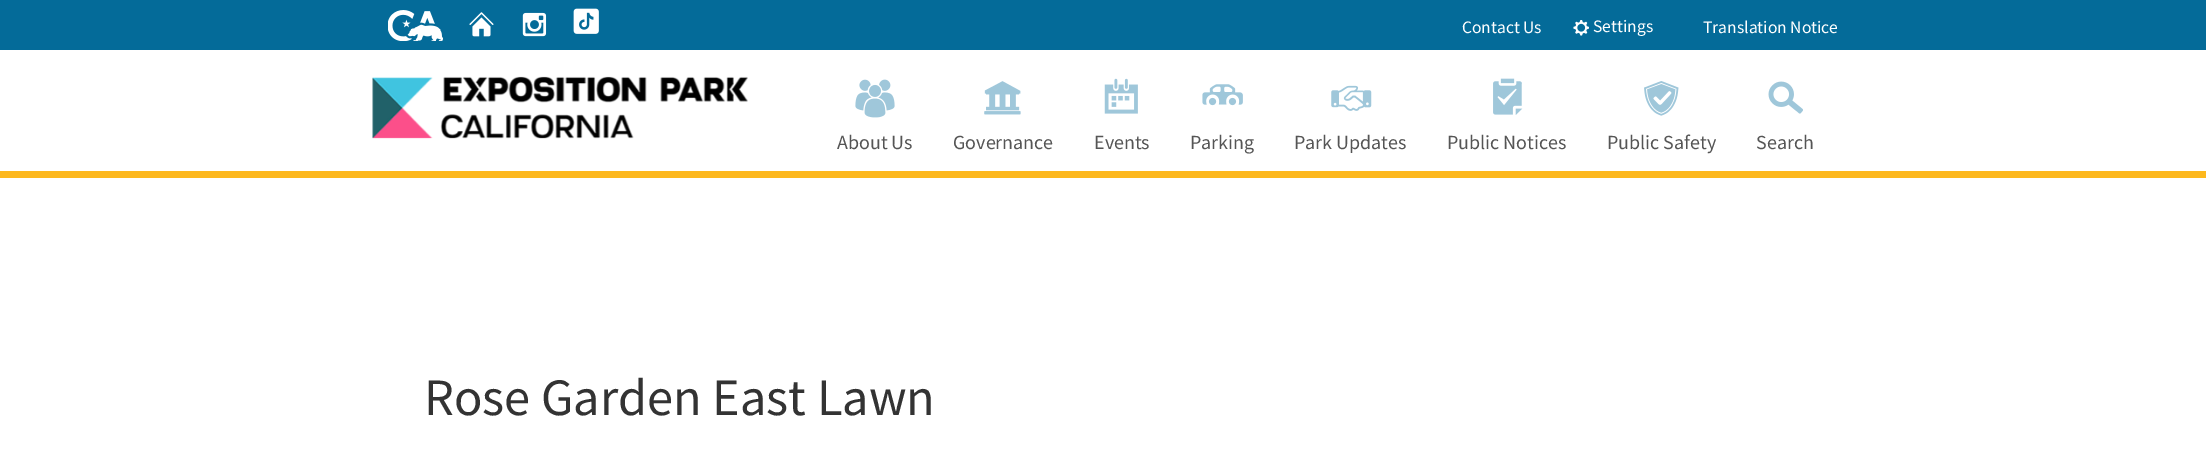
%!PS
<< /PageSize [2206 458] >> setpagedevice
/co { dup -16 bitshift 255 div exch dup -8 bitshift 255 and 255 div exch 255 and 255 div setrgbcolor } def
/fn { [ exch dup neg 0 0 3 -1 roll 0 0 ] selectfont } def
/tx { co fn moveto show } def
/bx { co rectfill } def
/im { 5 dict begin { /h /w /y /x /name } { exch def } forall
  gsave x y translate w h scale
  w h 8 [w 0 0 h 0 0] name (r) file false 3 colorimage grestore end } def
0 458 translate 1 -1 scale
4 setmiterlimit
0 0 2206 458 16#FFFFFF bx
0 0 2206 50 16#046B99 bx
(media/1.raw) 388 10 55 31 im
(media/2.raw) 469 12 25 25 im
(media/3.raw) 522 12 25 25 im
(media/4.raw) 573 8 26 26 im
(media/5.raw) 1573 20 16 16 im
(media/6.raw) 372 76 376 63 im
0 171 2206 7 16#FDB81E bx
(media/7.raw) 855 79 40 39 im
(media/8.raw) 984 81 37 34 im
(media/9.raw) 1104 78 34 36 im
(media/10.raw) 1202 84 41 22 im
(media/11.raw) 1331 85 41 26 im
(media/12.raw) 1493 78 30 37 im
(media/13.raw) 1644 81 35 35 im
(media/14.raw) 1768 81 35 33 im
(Contact Us) 1462 33 /SourceSansPro-Regular 17.5 16#FFFFFF tx
(Settings) 1593 32 /SourceSansPro-Regular 17.5 16#FFFFFF tx
(Translation Notice) 1703 33 /SourceSansPro-Regular 17.5 16#FFFFFF tx
(About Us) 837 149 /SourceSansPro-Regular 20 16#555555 tx
(Governance) 953 149 /SourceSansPro-Regular 20 16#555555 tx
(Events) 1094 149 /SourceSansPro-Regular 20 16#555555 tx
(Parking) 1190 149 /SourceSansPro-Regular 20 16#555555 tx
(Park Updates) 1294 149 /SourceSansPro-Regular 20 16#555555 tx
(Public Notices) 1447 149 /SourceSansPro-Regular 20 16#555555 tx
(Public Safety) 1607 149 /SourceSansPro-Regular 20 16#555555 tx
(Search) 1756 149 /SourceSansPro-Regular 20 16#555555 tx
(Rose Garden East Lawn) 424 415 /SourceSansPro-Regular 52.5 16#333333 tx
showpage
